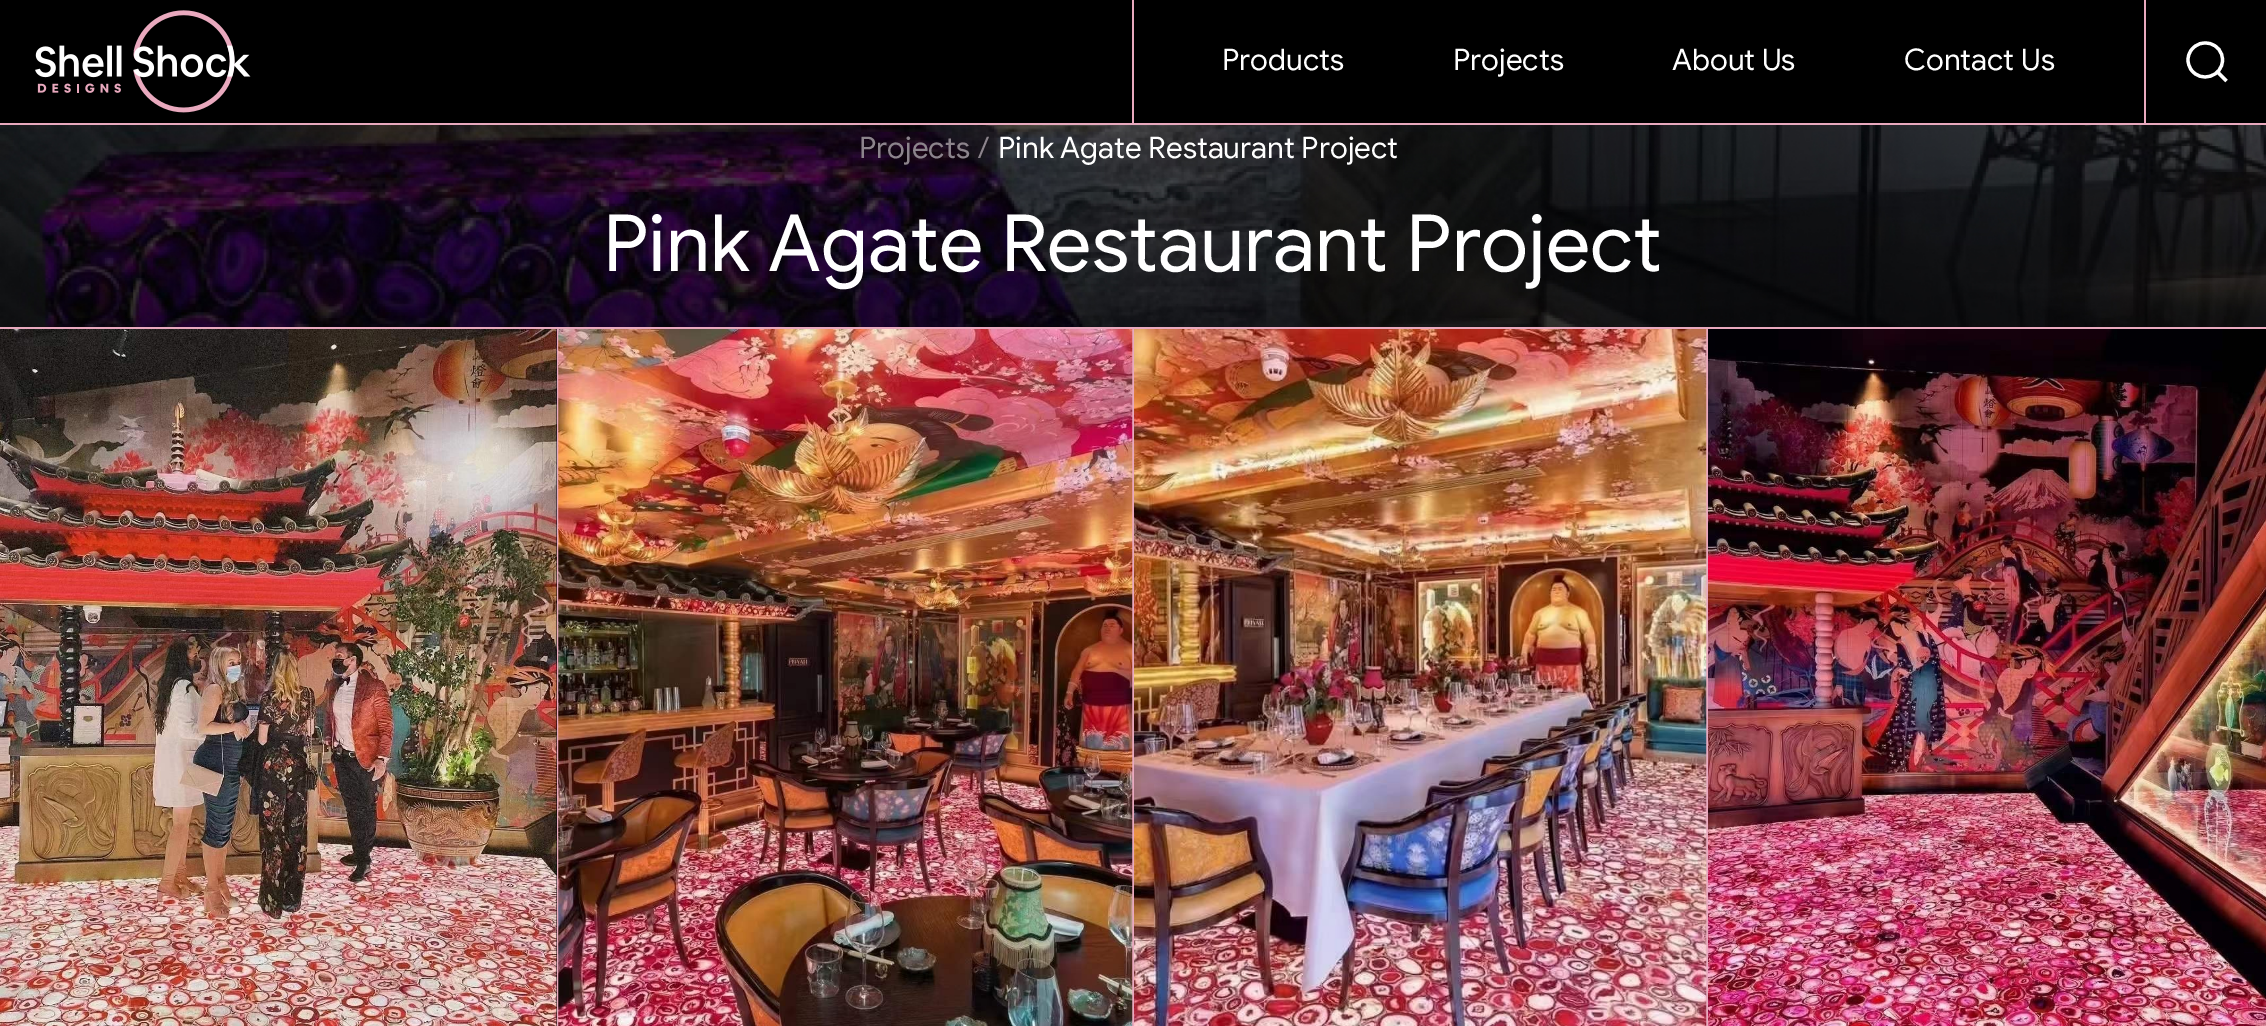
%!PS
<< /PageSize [2266 1026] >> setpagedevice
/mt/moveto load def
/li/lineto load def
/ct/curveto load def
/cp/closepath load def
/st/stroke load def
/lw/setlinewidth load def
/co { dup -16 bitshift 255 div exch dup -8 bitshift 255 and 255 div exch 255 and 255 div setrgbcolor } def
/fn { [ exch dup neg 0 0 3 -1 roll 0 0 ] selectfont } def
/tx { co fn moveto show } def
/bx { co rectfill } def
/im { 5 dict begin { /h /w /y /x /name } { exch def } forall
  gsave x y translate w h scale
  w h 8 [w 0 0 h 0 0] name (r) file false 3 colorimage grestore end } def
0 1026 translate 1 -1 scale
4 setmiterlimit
0 0 2266 1026 16#000000 bx
1132 0 2 124 16#E9A9BE bx
0 123 2266 2 16#E9A9BE bx
(media/1.raw) 35 10 216 103 im
2144 0 2 123 16#E9A9BE bx
16#FFFFFF co
3.2 lw
1 setlinecap
2226.5 81 mt 2217.5 72 li cp 2222.5 60 mt 2222.5 76.5 2200.5 83.5 2191 69.5 ct 2189 66.5 2188 63 2188 60 ct 2188 56.5 2189 53 2191 50.5 ct 2200.5 36.5 2222.5 43 2222.5 60 ct cp st
(media/2.raw) 0 125 2266 471 im
0 327 2266 2 16#E9A9BE bx
557 329 2 697 16#E9A9BE bx
(media/3.raw) 0 329 557 697 im
1132 329 2 697 16#E9A9BE bx
(media/4.raw) 558 329 575 697 im
1706 329 2 697 16#E9A9BE bx
(media/5.raw) 1134 329 573 697 im
(media/6.raw) 1708 329 558 697 im
(Products) 1222 70 /GoogleSans-Regular 29.75 16#FFFFFF tx
(Projects) 1453 70 /GoogleSans-Regular 29.75 16#FFFFFF tx
(About Us) 1672 70 /GoogleSans-Regular 29.75 16#FFFFFF tx
(Contact Us) 1904 70 /GoogleSans-Regular 29.75 16#FFFFFF tx
(Projects /) 859 158 /GoogleSans-Regular 29.75 16#8C848C tx
(Pink Agate Restaurant Project) 998 158 /GoogleSans-Regular 29.75 16#FFFFFF tx
(Pink Agate Restaurant Project) 603 271 /GoogleSans-Regular 78.75 16#FFFFFF tx
showpage
